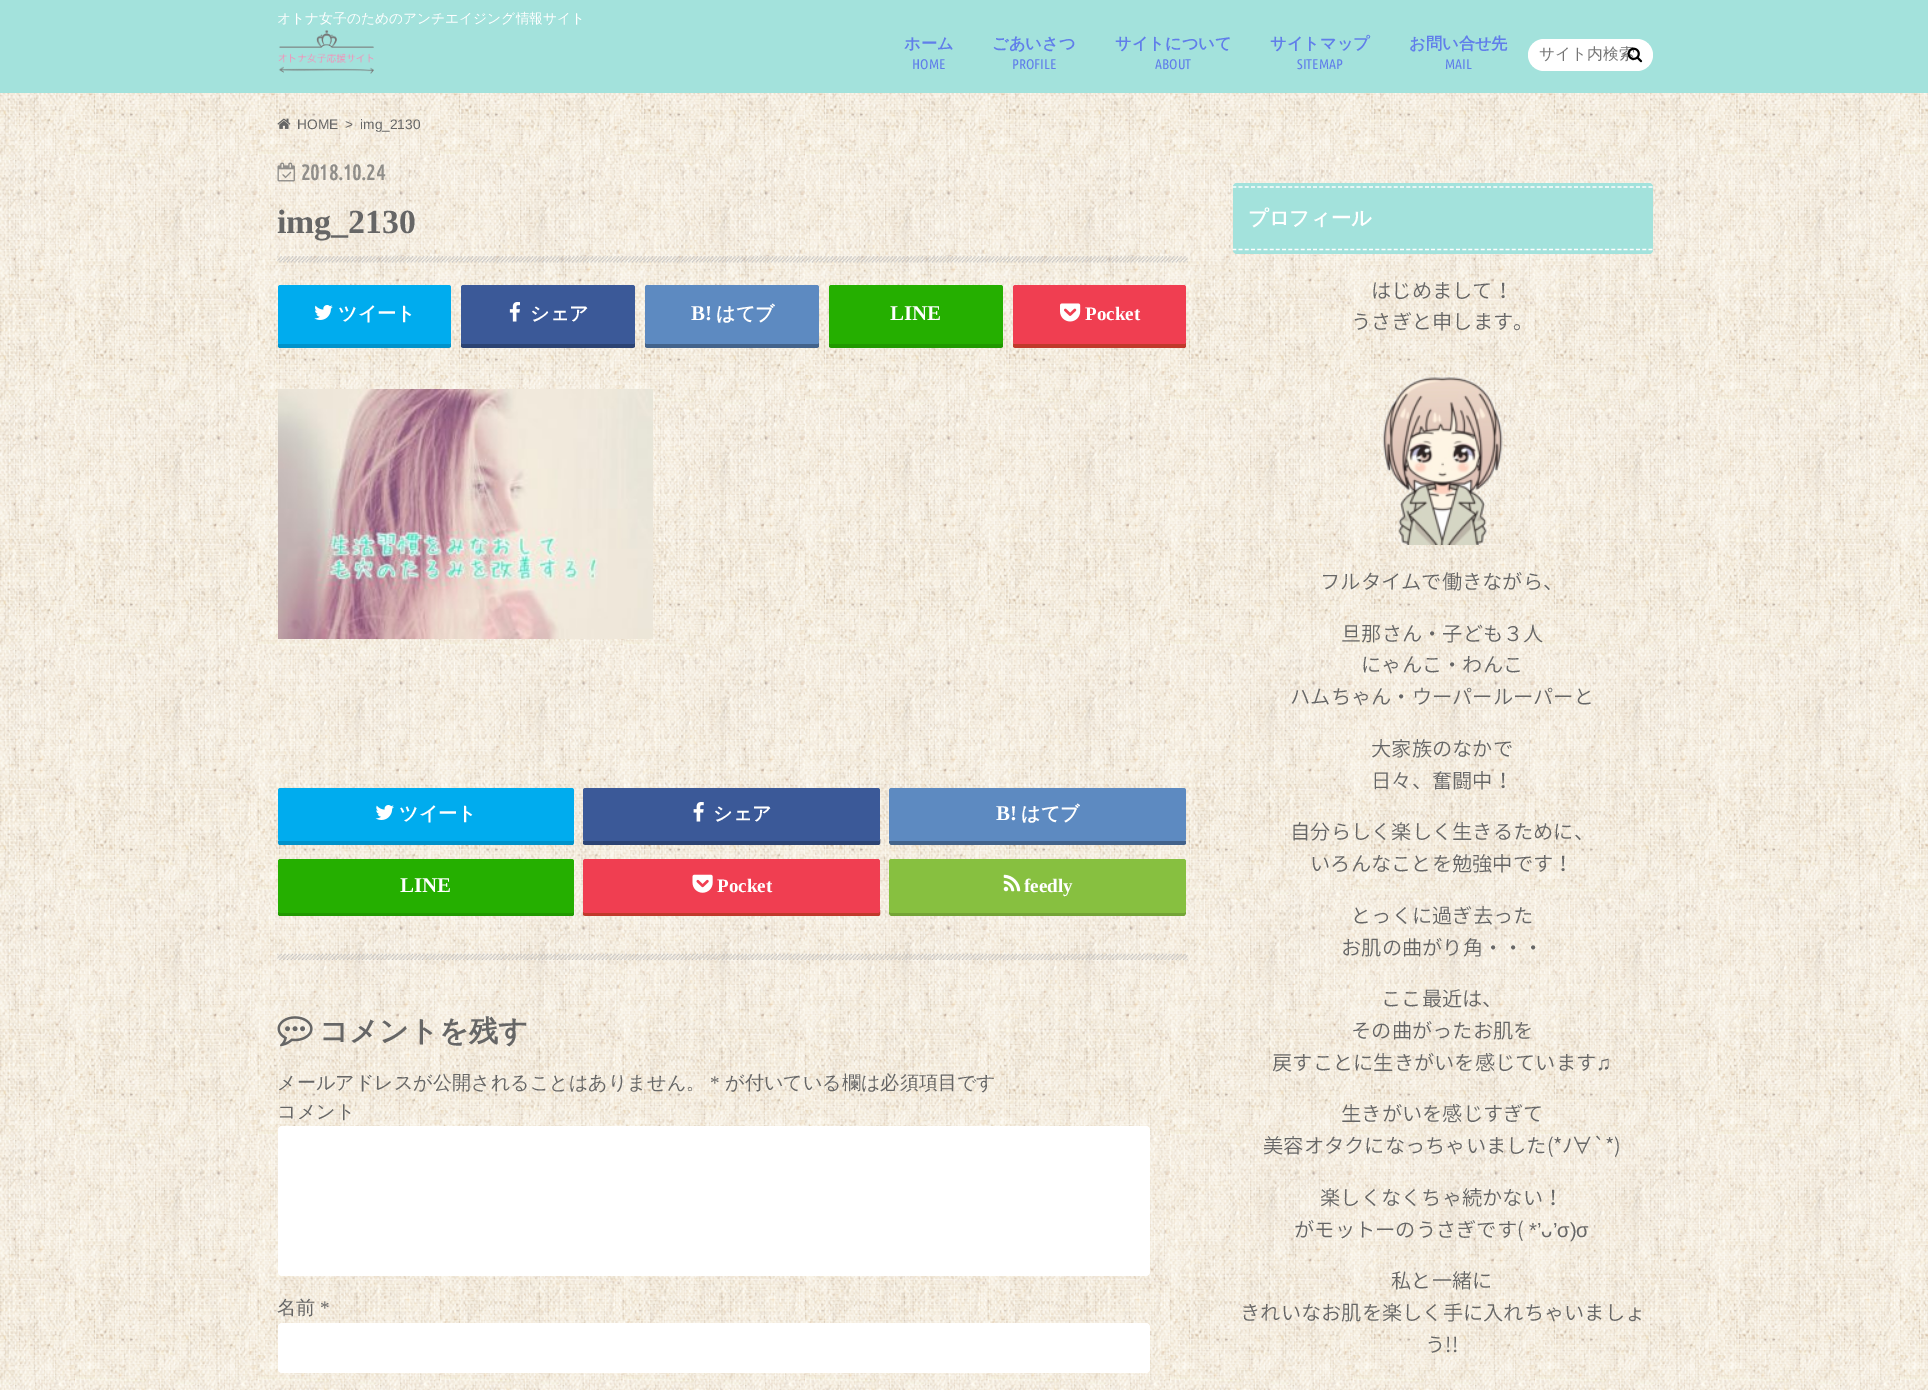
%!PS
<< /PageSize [1928 1390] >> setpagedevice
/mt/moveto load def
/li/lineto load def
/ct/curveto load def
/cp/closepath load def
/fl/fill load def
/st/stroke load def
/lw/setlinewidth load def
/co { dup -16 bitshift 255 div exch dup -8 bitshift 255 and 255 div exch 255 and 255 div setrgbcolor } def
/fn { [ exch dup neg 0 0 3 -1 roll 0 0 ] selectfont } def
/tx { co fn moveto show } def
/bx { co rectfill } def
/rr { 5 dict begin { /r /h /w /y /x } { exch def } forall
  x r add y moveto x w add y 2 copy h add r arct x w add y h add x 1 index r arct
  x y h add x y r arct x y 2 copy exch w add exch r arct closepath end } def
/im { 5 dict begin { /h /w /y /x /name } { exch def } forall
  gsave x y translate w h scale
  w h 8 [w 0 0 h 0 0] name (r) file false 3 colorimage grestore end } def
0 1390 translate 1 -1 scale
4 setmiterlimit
0 0 1928 1390 16#FFFFFF bx
(media/1.raw) 0 93 1928 1297 im
0 0 1928 93 16#A3E2DC bx
(media/2.raw) 278 30 96 44 im
16#FFFFFF co
1528 39 125 32 16 rr fl
(media/4.raw) 277 118 14 11 im
(media/5.raw) 277 162 18 20 im
(media/6.raw) 277 256 911 7 im
16#0092CA co
278 343 mt 278 346 li 278 347 279 348 280 348 ct 448 348 li 450 348 451 347 451 346 ct 451 342 li 451 343 450 344 449 344 ct 280 344 li 279 344 278 343 278 343 ct cp fl
16#00ACEE co
278 285 173 59 2.5 rr fl
(media/7.raw) 314 305 19 15 im
16#2C4373 co
461 290 mt 461 346 li 461 347 462 348 464 348 ct 632 348 li 634 348 635 347 635 346 ct 635 341 li 635 343 634 344 632 344 ct 464 344 li 462 344 461 343 461 341 ct cp fl
16#3B5998 co
461 285 174 59 2.5 rr fl
(media/8.raw) 509 302 11 20 im
16#43638B co
645 341 mt 645 346 li 645 347 646 348 648 348 ct 816 348 li 818 348 819 347 819 346 ct 819 290 li 819 341 li 819 343 818 344 816 344 ct 648 344 li 646 344 645 343 645 341 ct cp fl
16#5D8AC1 co
645 285 174 59 2.5 rr fl
16#219900 co
829 342 mt 829 346 li 829 347 830 348 832 348 ct 1000 348 li 1002 348 1003 347 1003 346 ct 1003 292 li 1002 290 li 1002 341 li 1002 343 1001 344 1000 344 ct 831 344 li 830 344 829 343 829 342 ct cp fl
16#25AF00 co
829 285 174 59 2.5 rr fl
16#C0392B co
1013 343 mt 1013 346 li 1013 347 1014 348 1016 348 ct 1184 348 li 1185 348 1186 347 1186 346 ct 1186 342 li 1186 343 1185 344 1184 344 ct 1015 344 li 1014 344 1013 343 1013 343 ct cp fl
16#F03E51 co
1013 285 173 59 2.5 rr fl
(media/9.raw) 1060 303 21 19 im
(media/10.raw) 278 389 375 250 im
16#0092CA co
278 840 mt 278 842 li 278 844 279 845 280 845 ct 572 845 li 573 845 574 844 574 842 ct 574 792 li 574 839 li 574 840 573 841 571 841 ct 280 841 li 279 841 278 841 278 840 ct cp fl
16#00ACEE co
278 788 296 53 2.5 rr fl
(media/11.raw) 375 805 19 15 im
16#2C4373 co
583 840 mt 583 844 li 585 845 li 878 845 li 881 845 880 841 880 839 ct 880 840 879 841 878 841 ct 585 841 li 584 841 583 841 583 840 ct cp fl
16#3B5998 co
583 788 297 53 2.5 rr fl
(media/12.raw) 693 802 11 20 im
16#43638B co
889 840 mt 889 842 889 844 891 845 ct 1184 845 li 1186 844 li 1186 840 li 1186 841 1185 841 1184 841 ct 891 841 li 890 841 889 841 889 840 ct cp fl
16#5D8AC1 co
889 788 297 53 2.5 rr fl
16#219900 co
278 912 mt 278 914 li 278 915 279 916 280 916 ct 572 916 li 573 916 574 915 574 914 ct 574 864 li 574 910 li 574 911 573 912 571 912 ct 280 912 li 279 912 278 912 278 912 ct cp fl
16#25AF00 co
278 859 296 54 2.5 rr fl
16#C0392B co
583 912 mt 583 915 li 585 916 li 878 916 li 881 916 880 912 880 910 ct 880 911 879 912 878 912 ct 585 912 li 584 912 583 912 583 912 ct cp fl
16#F03E51 co
583 859 297 54 2.5 rr fl
(media/13.raw) 692 874 21 19 im
16#74A436 co
889 911 mt 889 913 889 916 892 916 ct 1184 916 li 1186 915 1186 913 1186 911 ct 1186 912 1185 912 1184 912 ct 891 912 li 890 912 889 912 889 911 ct cp fl
16#87C040 co
889 859 297 54 2.5 rr fl
(media/14.raw) 1003 874 18 18 im
(media/15.raw) 277 953 911 7 im
(media/16.raw) 277 1016 36 31 im
16#FFFFFF co
278 1126 872 150 4 rr fl
278 1323 872 50 4 rr fl
16#A3E2DC co
1233 183 420 71 4 rr fl
16#FFFFFF co
1.2 lw
[3.75 2.46] 0 setdash
1232.5 187 mt 1652.5 187 li st
1232.5 249.5 mt 1652.5 249.5 li st
(media/17.raw) 1382 377 121 168 im
(オトナ女子のためのアンチエイジング情報サイト) 277 23 /WenQuanYiZenHei-Medium 13.75 16#FFFFFF tx
(ホーム) 904 49 /WenQuanYiZenHei-Bold 16.25 16#607EEA tx
(HOME) 912 69 /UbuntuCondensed-Regular 14 16#607EEA tx
(ごあいさつ) 992 49 /WenQuanYiZenHei-Bold 16.25 16#607EEA tx
(PROFILE) 1012 69 /UbuntuCondensed-Regular 14 16#607EEA tx
(サイトについて) 1115 49 /WenQuanYiZenHei-Bold 16.25 16#607EEA tx
(ABOUT) 1155 69 /UbuntuCondensed-Regular 14 16#607EEA tx
(サイトマップ) 1270 49 /WenQuanYiZenHei-Bold 16.25 16#607EEA tx
(SITEMAP) 1297 69 /UbuntuCondensed-Regular 14 16#607EEA tx
(お問い合せ先) 1409 49 /WenQuanYiZenHei-Bold 16.25 16#607EEA tx
(MAIL) 1445 69 /UbuntuCondensed-Regular 14 16#607EEA tx
(サイト内検索) 1539 59 /WenQuanYiZenHei-Medium 15.75 16#757575 tx
(media/3.raw) 1627 47 16 16 im
(HOME) 297 129 /LiberationSans-Regular 13.75 16#666666 tx
(>) 345 129 /LiberationSans-Regular 13.75 16#666666 tx
(img_2130) 360 129 /LiberationSans-Regular 13.75 16#666666 tx
(2018.10.24) 301 180 /UbuntuCondensed-Bold 21.5 16#908E8A tx
(img_2130) 277 233 /LiberationSerif-Bold 33.75 16#666666 tx
(ツイート) 338 320 /WenQuanYiZenHei-Bold 19.1 16#FFFFFF tx
(シェア) 530 320 /WenQuanYiZenHei-Bold 19.1 16#FFFFFF tx
(B!) 691 320 /LiberationSerif-Bold 21 16#FFFFFF tx
(はてブ) 716 320 /WenQuanYiZenHei-Bold 19.1 16#FFFFFF tx
(LINE) 890 320 /LiberationSerif-Bold 21 16#FFFFFF tx
(Pocket) 1085 320 /LiberationSerif-Bold 19.1 16#FFFFFF tx
(ツイート) 399 820 /WenQuanYiZenHei-Bold 19.1 16#FFFFFF tx
(シェア) 713 820 /WenQuanYiZenHei-Bold 19.1 16#FFFFFF tx
(B!) 996 820 /LiberationSerif-Bold 21 16#FFFFFF tx
(はてブ) 1021 820 /WenQuanYiZenHei-Bold 19.1 16#FFFFFF tx
(LINE) 400 892 /LiberationSerif-Bold 21 16#FFFFFF tx
(Pocket) 717 892 /LiberationSerif-Bold 19.1 16#FFFFFF tx
(feedly) 1024 892 /LiberationSerif-Bold 19.1 16#FFFFFF tx
(コメントを残す) 319 1041 /WenQuanYiZenHei-Bold 29.25 16#666666 tx
(メールアドレスが公開されることはありません。) 277 1089 /WenQuanYiZenHei-Medium 19.1 16#666666 tx
(*) 710 1089 /LiberationSerif-Regular 19.1 16#666666 tx
(が付いている欄は必須項目です) 725 1089 /WenQuanYiZenHei-Medium 19.1 16#666666 tx
(コメント) 277 1118 /WenQuanYiZenHei-Medium 19.1 16#666666 tx
(名前) 277 1314 /WenQuanYiZenHei-Medium 19.1 16#666666 tx
(*) 320 1314 /LiberationSerif-Regular 19.1 16#666666 tx
(プロフィール) 1248 225 /WenQuanYiZenHei-Bold 20.25 16#FFFFFF tx
(はじめまして！) 1371 298 /NotoSansJP-Light 20.25 16#666666 tx
(うさぎと申します。) 1351 329 /NotoSansJP-Light 20.25 16#666666 tx
(フルタイムで働きながら、) 1320 589 /NotoSansJP-Light 20.25 16#666666 tx
(旦那さん・子ども３人) 1341 641 /NotoSansJP-Light 20.25 16#666666 tx
(にゃんこ・わんこ) 1361 672 /NotoSansJP-Light 20.25 16#666666 tx
(ハムちゃん・ウーパールーパーと) 1290 704 /NotoSansJP-Light 20.25 16#666666 tx
(大家族のなかで) 1371 756 /NotoSansJP-Light 20.25 16#666666 tx
(日々、奮闘中！) 1371 788 /NotoSansJP-Light 20.25 16#666666 tx
(自分らしく楽しく生きるために、) 1290 839 /NotoSansJP-Light 20.25 16#666666 tx
(いろんなことを勉強中です！) 1310 871 /NotoSansJP-Light 20.25 16#666666 tx
(とっくに過ぎ去った) 1351 923 /NotoSansJP-Light 20.25 16#666666 tx
(お肌の曲がり角・・・) 1341 955 /NotoSansJP-Light 20.25 16#666666 tx
(ここ最近は、) 1381 1006 /NotoSansJP-Light 20.25 16#666666 tx
(その曲がったお肌を) 1351 1038 /NotoSansJP-Light 20.25 16#666666 tx
(戻すことに生きがいを感じています) 1272 1070 /NotoSansJP-Light 20.25 16#666666 tx
(♫) 1596 1070 /LiberationSerif-Regular 20.25 16#666666 tx
(生きがいを感じすぎて) 1341 1121 /NotoSansJP-Light 20.25 16#666666 tx
(美容オタクになっちゃいました\(*) 1263 1153 /NotoSansJP-Light 20.25 16#666666 tx
(ﾉ∀) 1562 1153 /IPAPGothic-Regular 20.25 16#666666 tx
(`*\)) 1593 1153 /NotoSansJP-Light 20.25 16#666666 tx
(楽しくなくちゃ続かない！) 1320 1205 /NotoSansJP-Light 20.25 16#666666 tx
(がモットーのうさぎです\() 1294 1237 /NotoSansJP-Light 20.25 16#666666 tx
(*’ᴗ’σ\)σ) 1529 1237 /LiberationSans-Regular 20.25 16#666666 tx
(私と一緒に) 1391 1288 /NotoSansJP-Light 20.25 16#666666 tx
(きれいなお肌を楽しく手に入れちゃいましょ) 1240 1320 /NotoSansJP-Light 20.25 16#666666 tx
(う!!) 1425 1352 /NotoSansJP-Light 20.25 16#666666 tx
showpage
